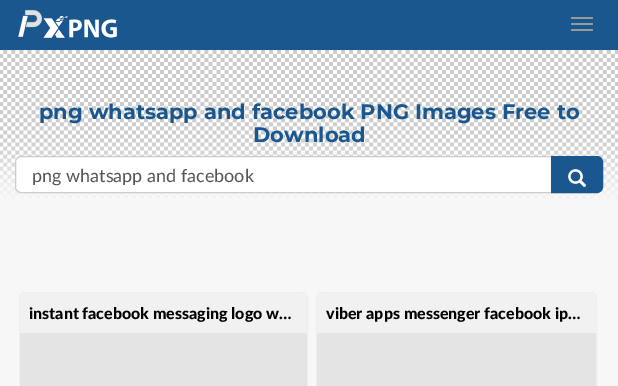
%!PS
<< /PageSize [618 386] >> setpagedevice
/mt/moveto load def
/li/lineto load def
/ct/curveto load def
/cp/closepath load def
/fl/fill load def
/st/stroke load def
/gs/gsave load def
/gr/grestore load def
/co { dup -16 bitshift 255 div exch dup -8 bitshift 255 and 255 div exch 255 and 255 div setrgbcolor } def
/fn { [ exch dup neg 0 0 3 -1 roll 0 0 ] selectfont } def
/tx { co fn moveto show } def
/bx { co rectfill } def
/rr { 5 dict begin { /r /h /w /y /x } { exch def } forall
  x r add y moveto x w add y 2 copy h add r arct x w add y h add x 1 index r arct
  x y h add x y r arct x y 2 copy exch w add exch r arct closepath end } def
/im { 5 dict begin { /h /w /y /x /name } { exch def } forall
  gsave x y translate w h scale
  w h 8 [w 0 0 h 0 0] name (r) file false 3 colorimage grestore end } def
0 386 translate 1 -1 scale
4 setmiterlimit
0 0 618 386 16#F7F7F7 bx
0 0 618 50 16#19578E bx
(media/1.raw) 18 9 99 29 im
16#999999 co
571 17 22 2 1 rr fl
571 23 22 2 1 rr fl
571 29 22 2 1 rr fl
(media/2.raw) 0 50 618 149 im
16#FFFFFF co
21 156.5 mt 551.5 156.5 li 551.5 192.5 li 21 192.5 li 18 192.5 15.5 190 15.5 187 ct 15.5 162 li 15.5 159 18 156.5 21 156.5 ct cp gs fl gr
16#CCCCCC co
st
16#19578E co
551.5 156.5 mt 597 156.5 li 600 156.5 602.5 159 602.5 162 ct 602.5 187 li 602.5 190 600 192.5 597 192.5 ct 551.5 192.5 li cp gs fl gr
st
(media/3.raw) 568 169 19 19 im
16#E4E4E4 co
19.5 292.5 288 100 5.5 rr gs fl gr
16#EEEEEE co
st
16#F1F1F1 co
25 293 mt 302 293 li 305 293 307 295 307 298 ct 307 333 li 20 333 li 20 298 li 20 295 22 293 25 293 ct cp fl
16#E4E4E4 co
316.5 292.5 280 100 5.5 rr gs fl gr
16#EEEEEE co
st
16#F1F1F1 co
322 293 mt 591 293 li 594 293 596 295 596 298 ct 596 333 li 317 333 li 317 298 li 317 295 319 293 322 293 ct cp fl
(png whatsapp and facebook PNG Images Free to) 39 119 /Montserrat-Thin 21 16#19578E tx
(Download) 253 142 /Montserrat-Thin 21 16#19578E tx
(png whatsapp and facebook) 32 182 /Lato-Regular 18 16#555555 tx
(instant facebook messaging logo w…) 29 319 /Lato-Black 16 16#000000 tx
(viber apps messenger facebook ip…) 326 319 /Lato-Black 16 16#000000 tx
showpage
